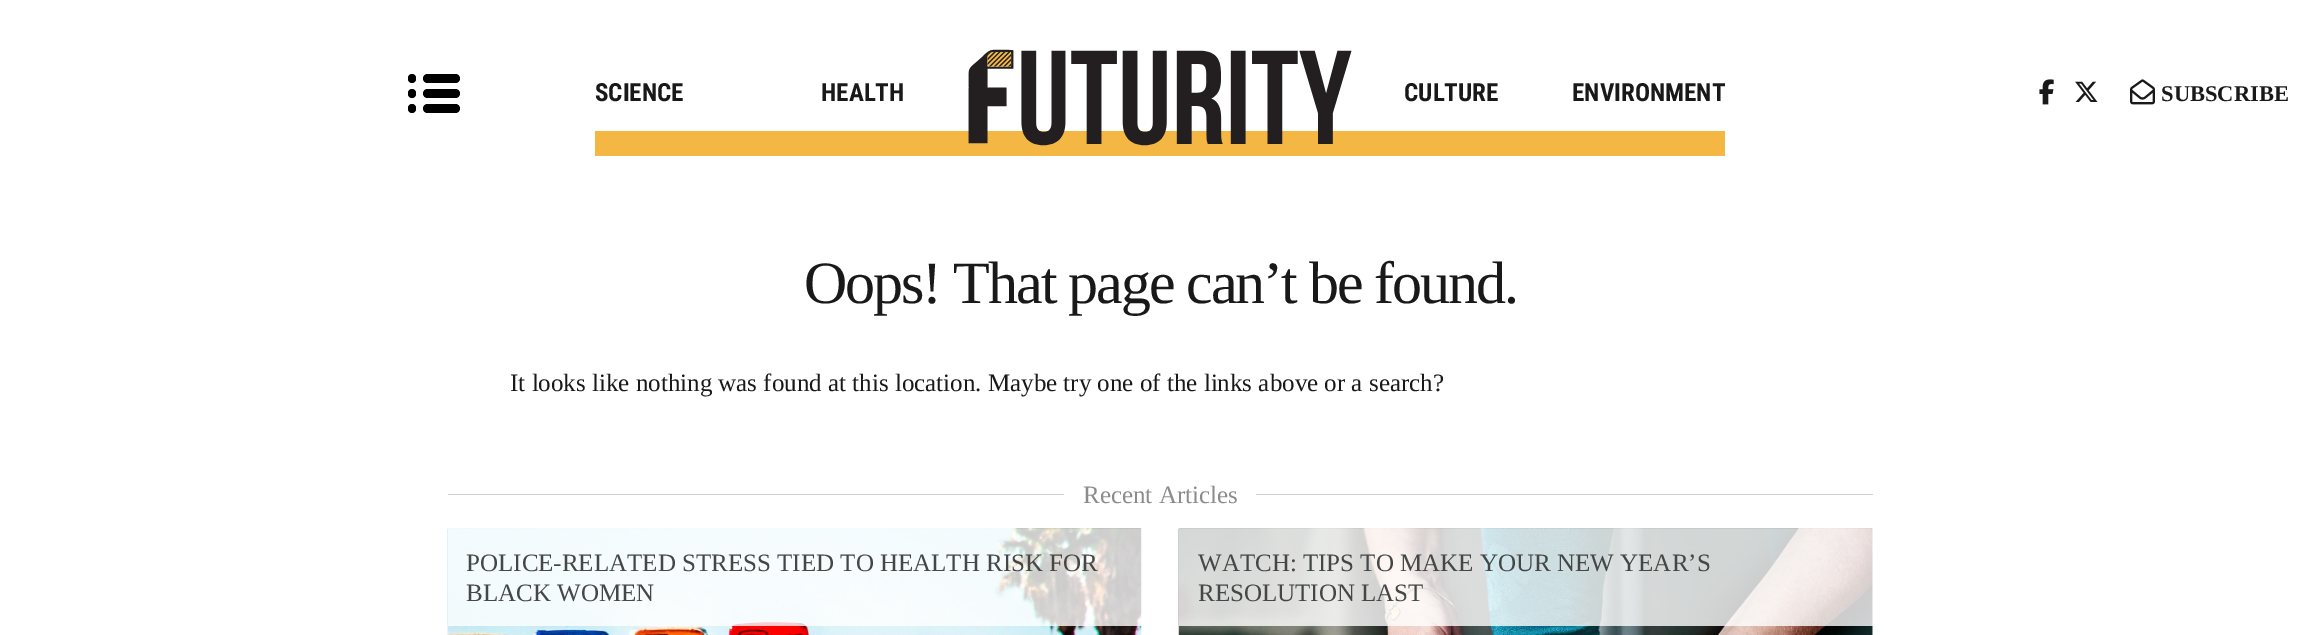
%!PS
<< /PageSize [2319 635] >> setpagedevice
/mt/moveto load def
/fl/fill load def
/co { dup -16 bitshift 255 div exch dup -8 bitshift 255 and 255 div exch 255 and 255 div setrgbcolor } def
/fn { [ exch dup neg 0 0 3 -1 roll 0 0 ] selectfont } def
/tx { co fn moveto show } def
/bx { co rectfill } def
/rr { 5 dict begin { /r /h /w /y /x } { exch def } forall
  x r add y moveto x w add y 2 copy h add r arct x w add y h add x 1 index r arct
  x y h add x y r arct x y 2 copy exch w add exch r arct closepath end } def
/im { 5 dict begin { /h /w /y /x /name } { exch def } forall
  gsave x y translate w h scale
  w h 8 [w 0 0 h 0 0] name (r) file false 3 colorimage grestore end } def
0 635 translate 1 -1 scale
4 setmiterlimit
0 0 2319 635 16#FFFFFF bx
16#000000 co
408 74 8 9 4 rr fl
423 74 37 9 4.5 rr fl
408 89 8 9 4 rr fl
423 89 37 9 4.5 rr fl
408 104 8 9 4 rr fl
423 104 37 9 4.5 rr fl
595 131 1130 25 16#F4B743 bx
(media/1.raw) 968 49 384 97 im
(media/2.raw) 2039 79 15 26 im
(media/3.raw) 2075 81 23 21 im
(media/4.raw) 2130 79 25 26 im
448 494 1425 1 16#D2D1D1 bx
1064 494 192 1 16#FFFFFF bx
(media/5.raw) 447 528 695 107 im
(media/6.raw) 1178 528 695 107 im
(SCIENCE) 595 101 /RobotoCondensed-Bold 25 16#1A1919 tx
(HEALTH) 821 101 /RobotoCondensed-Bold 25 16#1A1919 tx
(CULTURE) 1404 101 /RobotoCondensed-Bold 25 16#1A1919 tx
(ENVIRONMENT) 1572 101 /RobotoCondensed-Bold 25 16#1A1919 tx
(SUBSCRIBE) 2161 101 /LiberationSerif-Bold 22.5 16#1A1919 tx
/LiberationSerif-Regular 60 fn
804 303 mt -2.05 0 (Oops! That page can’t be found.) ashow
(It looks like nothing was found at this location. Maybe try one of the links above or a search?) 510 391 /LiberationSerif-Regular 25 16#1A1919 tx
(Recent Articles) 1083 503 /LiberationSerif-Regular 25 16#8C8C8C tx
(POLICE-RELATED STRESS TIED TO HEALTH RISK FOR) 466 571 /LiberationSerif-Regular 25 16#454646 tx
(BLACK WOMEN) 466 601 /LiberationSerif-Regular 25 16#454646 tx
(WATCH: TIPS TO MAKE YOUR NEW YEAR’S) 1198 571 /LiberationSerif-Regular 25 16#454646 tx
(RESOLUTION LAST) 1198 601 /LiberationSerif-Regular 25 16#454646 tx
showpage
